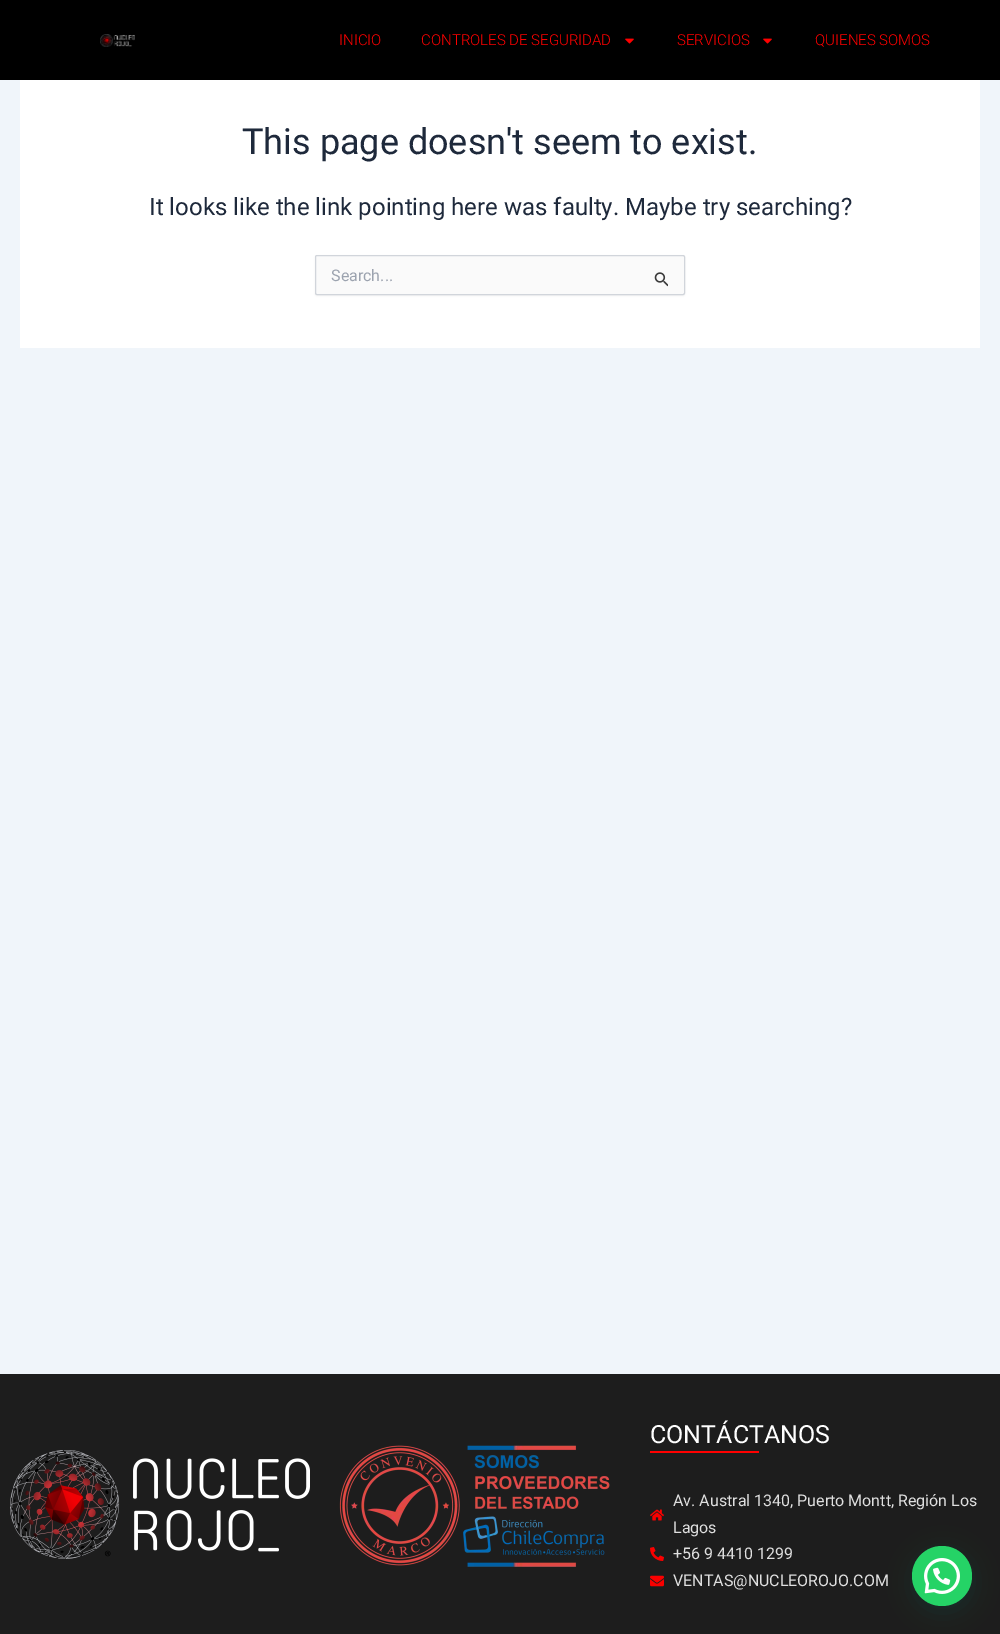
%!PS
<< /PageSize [1000 1634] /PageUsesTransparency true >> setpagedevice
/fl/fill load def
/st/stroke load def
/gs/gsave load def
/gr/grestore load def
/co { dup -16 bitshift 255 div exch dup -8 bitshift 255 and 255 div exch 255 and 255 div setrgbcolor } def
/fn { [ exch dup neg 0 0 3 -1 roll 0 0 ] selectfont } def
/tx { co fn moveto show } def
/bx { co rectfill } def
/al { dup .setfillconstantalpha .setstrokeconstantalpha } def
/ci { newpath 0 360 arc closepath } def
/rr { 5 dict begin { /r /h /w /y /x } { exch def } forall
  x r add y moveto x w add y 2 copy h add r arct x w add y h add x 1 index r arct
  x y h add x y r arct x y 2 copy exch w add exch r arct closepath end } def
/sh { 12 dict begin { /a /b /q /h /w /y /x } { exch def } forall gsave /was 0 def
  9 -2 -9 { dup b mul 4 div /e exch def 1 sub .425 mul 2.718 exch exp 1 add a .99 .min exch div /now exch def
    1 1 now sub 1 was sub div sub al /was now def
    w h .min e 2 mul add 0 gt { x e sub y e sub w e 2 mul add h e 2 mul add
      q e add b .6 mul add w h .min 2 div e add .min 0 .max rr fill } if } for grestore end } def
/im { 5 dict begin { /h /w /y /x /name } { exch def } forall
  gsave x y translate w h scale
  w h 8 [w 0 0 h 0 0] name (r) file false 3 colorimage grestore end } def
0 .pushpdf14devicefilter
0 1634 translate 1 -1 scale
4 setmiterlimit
0 0 1000 1634 16#F0F5FA bx
0 0 1000 80 16#000000 bx
(media/1.raw) 100 34 35 13 im
(media/2.raw) 625 38 9 6 im
(media/2.raw) 763 38 9 6 im
20 80 960 268 16#FFFFFF bx
16#000000 co
315 256 370 40 2 1 .05 sh
16#FAFAFA co
315.5 255.5 369 39 1.5 rr gs fl gr
16#D1D5DB co
st
(media/3.raw) 654 272 14 15 im
0 1374 1000 260 16#1D1D1D bx
(media/4.raw) 10 1450 300 109 im
(media/5.raw) 339 1445 271 122 im
650 1451 109 2 16#FF0000 bx
(media/6.raw) 650 1509 14 12 im
(media/7.raw) 650 1547 14 14 im
(media/8.raw) 650 1575 14 12 im
16#075E54 co
913 1552 60 60 30 12 .24 sh
16#25D366 co
942 1576 30 ci fl
(media/9.raw) 924 1558 36 36 im
(INICIO) 339 45 /Roboto-Light 15 16#FF0000 tx
(CONTROLES DE SEGURIDAD) 421 45 /Roboto-Light 15 16#FF0000 tx
(SERVICIOS) 677 45 /Roboto-Light 15 16#FF0000 tx
(QUIENES SOMOS) 815 45 /Roboto-Light 15 16#FF0000 tx
(This page doesn't seem to exist.) 242 154 /Roboto-Regular 36 16#1E293B tx
(It looks like the link pointing here was faulty. Maybe try searching?) 149 215 /Roboto-Regular 24 16#1E293B tx
(Search...) 331 281 /Roboto-Regular 16 16#9CA3AF tx
(CONTÁCTANOS) 650 1443 /Roboto-Regular 25 16#FFFFFF tx
(Av. Austral 1340, Puerto Montt, Región Los) 673 1506 /Roboto-Regular 16 16#DFDFDF tx
(Lagos) 673 1533 /Roboto-Regular 16 16#DFDFDF tx
(+56 9 4410 1299) 673 1559 /Roboto-Regular 16 16#DFDFDF tx
(VENTAS@NUCLEOROJO.COM) 673 1586 /Roboto-Regular 16 16#DFDFDF tx
.poppdf14devicefilter showpage
